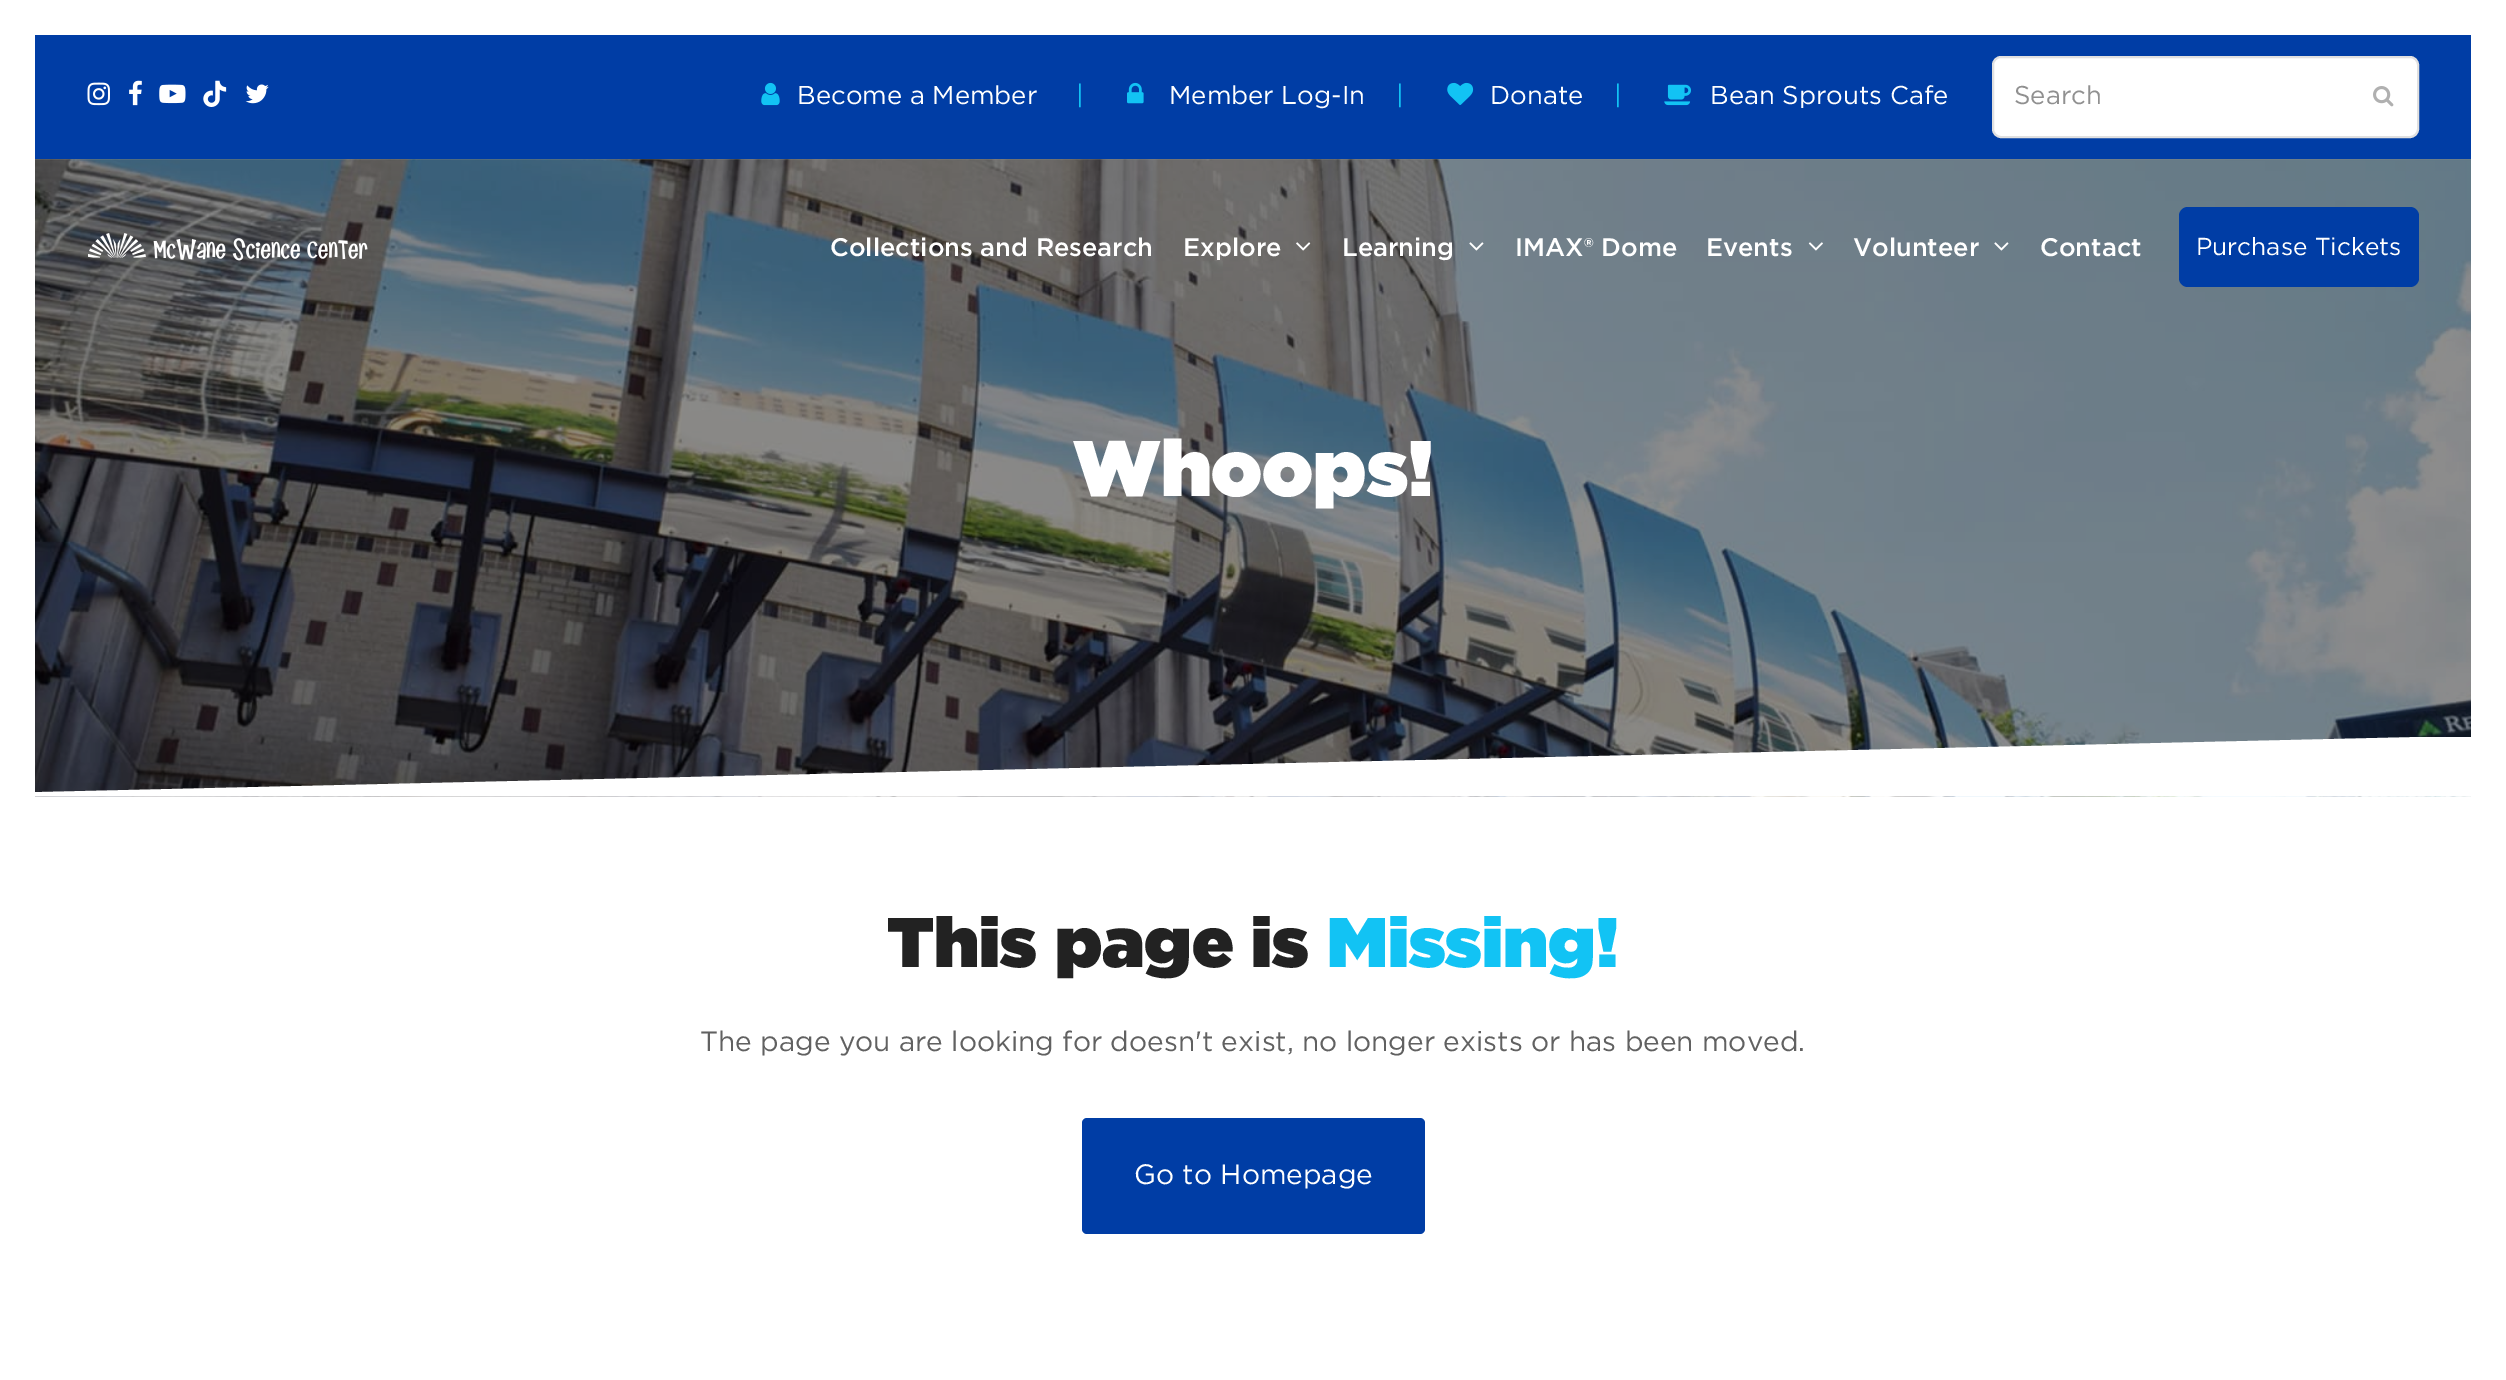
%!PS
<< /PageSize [2506 1380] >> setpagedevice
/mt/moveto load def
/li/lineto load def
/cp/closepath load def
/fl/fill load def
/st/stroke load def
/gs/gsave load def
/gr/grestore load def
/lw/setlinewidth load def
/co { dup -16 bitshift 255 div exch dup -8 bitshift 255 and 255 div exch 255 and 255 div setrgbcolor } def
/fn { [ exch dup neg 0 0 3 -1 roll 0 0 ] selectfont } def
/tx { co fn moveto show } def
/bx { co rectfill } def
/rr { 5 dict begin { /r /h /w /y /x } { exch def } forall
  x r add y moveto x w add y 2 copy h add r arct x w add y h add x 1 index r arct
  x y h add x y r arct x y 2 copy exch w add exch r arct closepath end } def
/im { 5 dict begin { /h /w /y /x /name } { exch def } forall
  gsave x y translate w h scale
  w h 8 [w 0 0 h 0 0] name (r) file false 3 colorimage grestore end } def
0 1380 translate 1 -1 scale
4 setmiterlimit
0 0 2506 1380 16#FFFFFF bx
35 35 2436 124 16#003DA5 bx
(media/1.raw) 87 82 23 24 im
(media/2.raw) 129 80 13 26 im
(media/3.raw) 159 84 27 20 im
(media/4.raw) 203 80 24 27 im
(media/5.raw) 245 84 24 20 im
(media/6.raw) 761 82 19 24 im
(media/7.raw) 1127 82 17 22 im
(media/8.raw) 1447 82 27 23 im
(media/9.raw) 1664 84 27 22 im
16#FFFFFF co
1993 57 425 80 8 rr gs fl gr
16#E0E0E0 co
2 lw
st
(media/10.raw) 2373 86 21 21 im
(media/16.raw) 35 159 2436 638 im
(media/11.raw) 88 233 280 28 im
(media/12.raw) 1296 242 15 9 im
(media/13.raw) 1469 242 15 9 im
(media/14.raw) 1808 242 15 9 im
(media/15.raw) 1994 242 15 9 im
16#003DA5 co
2179 207 240 80 9 rr fl
gs
35 737 2436 59 rectclip
16#FFFFFF co
-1 793 mt -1 797 li 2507 797 li 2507 735 li cp fl
gr
1082 1118 343 116 5 rr fl
(Become a Member) 797 104 /Gotham-Regular 25.75 16#FFFFFF tx
(|) 1076 104 /Gotham-Regular 25.75 16#12C3F4 tx
(Member Log-In) 1169 104 /Gotham-Regular 25.75 16#FFFFFF tx
(|) 1396 104 /Gotham-Regular 25.75 16#12C3F4 tx
(Donate) 1490 104 /Gotham-Regular 25.75 16#FFFFFF tx
(|) 1614 104 /Gotham-Regular 25.75 16#12C3F4 tx
(Bean Sprouts Cafe) 1710 104 /Gotham-Regular 25.75 16#FFFFFF tx
(Search) 2014 104 /Gotham-Regular 25.75 16#909090 tx
(Collections and Research) 830 256 /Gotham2-Medium 25.4 16#FFFFFF tx
(Explore) 1183 256 /Gotham2-Medium 25.4 16#FFFFFF tx
(Learning) 1342 256 /Gotham2-Medium 25.4 16#FFFFFF tx
(IMAX® Dome) 1515 256 /Gotham2-Medium 25.4 16#FFFFFF tx
(Events) 1706 256 /Gotham2-Medium 25.4 16#FFFFFF tx
(Volunteer) 1853 256 /Gotham2-Medium 25.4 16#FFFFFF tx
(Contact) 2040 256 /Gotham2-Medium 25.4 16#FFFFFF tx
(Purchase Tickets) 2196 255 /Gotham-Regular 24.5 16#FFFFFF tx
(Whoops!) 1073 496 /Gotham-Medium 78.75 16#FFFFFF tx
(This page is) 887 967 /Gotham-Medium 70 16#222222 tx
(Missing!) 1327 967 /Gotham-Medium 70 16#12C3F4 tx
(The page you are looking for doesn't exist, no longer exists or has been moved.) 700 1051 /Gotham-Regular 28 16#616161 tx
(Go to Homepage) 1134 1184 /Gotham-Regular 28 16#FFFFFF tx
showpage
